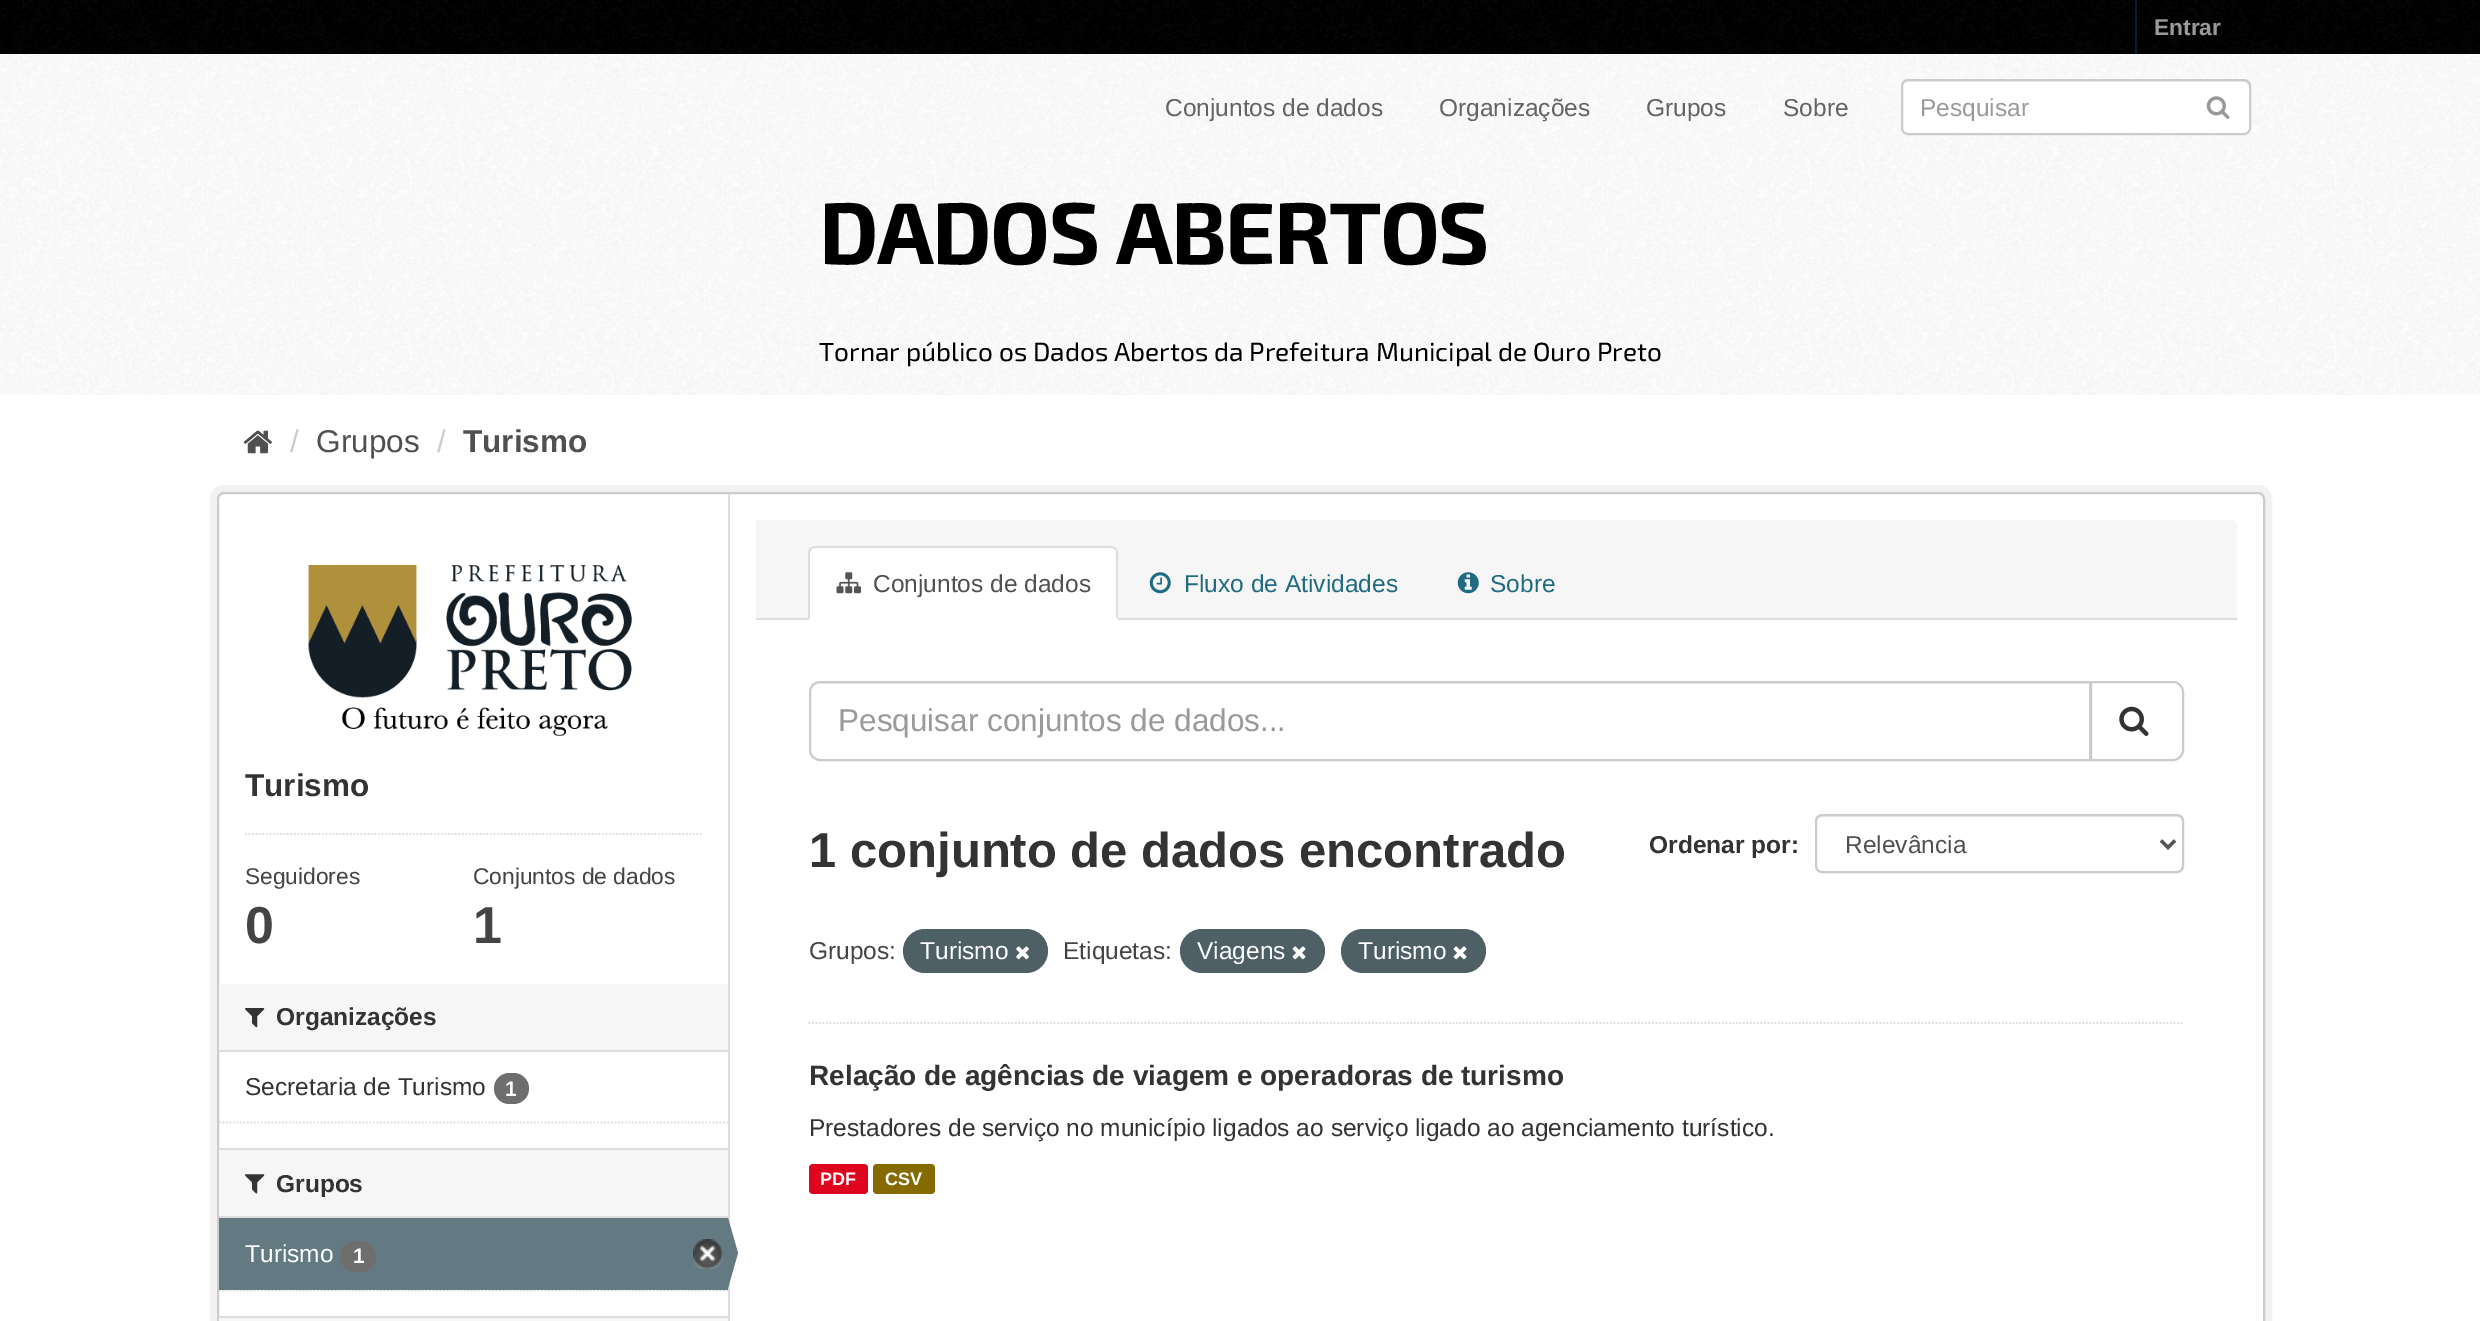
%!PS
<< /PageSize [2480 1321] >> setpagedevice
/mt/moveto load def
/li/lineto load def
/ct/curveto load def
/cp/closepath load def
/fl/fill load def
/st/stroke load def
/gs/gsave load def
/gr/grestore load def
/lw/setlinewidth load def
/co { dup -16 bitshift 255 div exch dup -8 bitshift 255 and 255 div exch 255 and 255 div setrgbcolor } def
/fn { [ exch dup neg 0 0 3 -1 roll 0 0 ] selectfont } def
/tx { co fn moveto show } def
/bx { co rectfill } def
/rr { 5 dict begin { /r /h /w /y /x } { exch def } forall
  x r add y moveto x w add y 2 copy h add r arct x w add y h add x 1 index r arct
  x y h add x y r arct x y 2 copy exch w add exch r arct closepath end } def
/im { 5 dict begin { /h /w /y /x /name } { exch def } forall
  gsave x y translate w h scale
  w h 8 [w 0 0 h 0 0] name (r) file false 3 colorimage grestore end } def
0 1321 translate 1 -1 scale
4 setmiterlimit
0 0 2480 1321 16#000000 bx
(media/1.raw) 0 0 2480 54 im
2135 0 2 54 16#00232E bx
0 54 2480 1267 16#FFFFFF bx
(media/2.raw) 0 54 2480 341 im
1901 79 350 56 7 rr fl
16#ECECEC co
1908 82 mt 2244 82 li 2246 82 2249 85 2249 88 ct 2249 85 2248 81 2244 81 ct 1907 81 li 1903 81 1902 85 1902 88 ct 1902 85 1905 82 1908 82 ct cp fl
16#CCCCCC co
2 lw
1902 80 348 54 6 rr st
(media/3.raw) 2206 96 24 23 im
(media/4.raw) 243 430 29 24 im
16#F2F2F2 co
7 lw
213.5 488.5 2055 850 10.5 rr st
16#FFFFFF co
218 493 2046 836 6 rr gs fl gr
16#CCCCCC co
2 lw
st
(media/5.raw) 308 565 324 171 im
16#DDDDDD co
1.8 lw
[1.75 1.75] 0 setdash
245 834 mt 702 834 li st
16#F6F6F6 co
224 984 mt 728 984 li 728 1052 li 219 1052 li 219 989 li 219 986 221 984 224 984 ct cp fl
219 1050 509 2 16#DDDDDD bx
(media/6.raw) 245 1008 20 20 im
16#6E6E6E co
494 1073 35 31 15.5 rr fl
16#DDDDDD co
219 1122.5 mt 728 1122.5 li st
219 1150 509 66 16#F6F6F6 bx
219 1148 509 2 16#DDDDDD bx
219 1216 509 2 16#DDDDDD bx
(media/7.raw) 245 1174 20 20 im
219 1290.5 mt 728 1290.5 li st
219 1218 509 72 16#647A82 bx
16#6E6E6E co
340 1241 36 31 15.5 rr fl
(media/8.raw) 693 1239 30 30 im
728 494 2 827 16#DDDDDD bx
16#647A82 co
728 1288 mt 728 1218 li 738 1253 li cp fl
219 1318 509 3 16#F6F6F6 bx
219 1316 509 2 16#DDDDDD bx
16#F6F6F6 co
756 520 mt 2232 520 li 2235 520 2237 522 2237 525 ct 2237 620 li 756 620 li cp fl
756 618 1481 2 16#DDDDDD bx
16#FFFFFF co
816 546 mt 1111 546 li 1115 546 1118 549 1118 553 ct 1118 620 li 809 620 li 809 553 li 809 549 812 546 816 546 ct cp fl
16#DDDDDD co
816 546 mt 814 546 812 547 810 548 ct 812 549 li 815 548 li 1111 548 li 1112 548 1114 548 1115 550 ct 1116 548 li 1115 547 1113 546 1111 546 ct cp fl
1116 548 mt 1117 549 1118 551 1118 553 ct 1118 619 li 1116 617 li 1116 553 li 1116 552 1116 550 1115 550 ct cp fl
808 620 mt 808 551 li 810 548 li 812 549 li 810 552 li 810 618 li cp fl
(media/9.raw) 836 572 25 22 im
(media/10.raw) 1149 572 22 22 im
(media/11.raw) 1457 572 22 22 im
808.5 1023 mt 2184 1023 li st
16#ECECEC co
819 684 mt 2090 684 li 2090 683 li 819 683 li 814 683 810 687 810 692 ct 810 693 li 810 688 814 684 819 684 ct cp fl
16#CCCCCC co
2 lw
[] 0 setdash
820 682 mt 2090 682 li 2090 760 li 820 760 li 814.5 760 810 755.5 810 750 ct 810 692 li 810 686.5 814.5 682 820 682 ct cp st
16#FFFFFF co
2091 682 mt 2173 682 li 2178.5 682 2183 686.5 2183 692 ct 2183 750 li 2183 755.5 2178.5 760 2173 760 ct 2091 760 li cp gs fl gr
16#CCCCCC co
st
(media/12.raw) 2119 706 30 30 im
16#ECECEC co
1822 817 mt 2177 817 li 2180 817 2182 820 2182 822 ct 2182 819 2180 816 2177 816 ct 1821 816 li 1819 816 1818 818 1817 819 ct 1818 818 1820 817 1822 817 ct cp fl
16#CCCCCC co
1816 815 367 57 6 rr st
16#555555 co
3.5 lw
2161 840.5 mt 2168 847.5 li 2175 840.5 li st
16#4E5F65 co
903 929 145 44 22 rr fl
(media/13.raw) 1016 946 13 14 im
1180 929 145 44 22 rr fl
(media/14.raw) 1292 946 14 14 im
1341 929 145 44 22 rr fl
(media/14.raw) 1453 946 14 14 im
16#E0051E co
809 1164 59 30 4 rr fl
16#856A00 co
873 1164 62 30 4 rr fl
(Entrar) 2154 35 /LiberationSans-Bold 22.75 16#9A9A9A tx
(Conjuntos de dados) 1165 116 /LiberationSans-Regular 24.5 16#636363 tx
(Organizações) 1439 116 /LiberationSans-Regular 24.5 16#636363 tx
(Grupos) 1646 116 /LiberationSans-Regular 24.5 16#636363 tx
(Sobre) 1783 116 /LiberationSans-Regular 24.5 16#636363 tx
(Pesquisar) 1920 116 /LiberationSans-Regular 24.5 16#9A9A9A tx
/Exo2-Bold 87.5 fn
16#000000 co
819 264 mt -1.75 0 (DADOS ABERTOS) ashow
(Tornar público os Dados Abertos da Prefeitura Municipal de Ouro Preto) 819 361 /Exo2-Regular 26.25 16#000000 tx
(/) 290 452 /LiberationSans-Regular 31.5 16#CCCCCC tx
(Grupos) 316 452 /LiberationSans-Regular 31.5 16#505050 tx
(/) 437 452 /LiberationSans-Regular 31.5 16#CCCCCC tx
(Turismo) 463 452 /LiberationSans-Bold 31.5 16#505050 tx
(Turismo) 245 796 /LiberationSans-Bold 31.5 16#333333 tx
(Seguidores) 245 884 /LiberationSans-Regular 22.75 16#444444 tx
(0) 245 943 /LiberationSans-Bold 52 16#444444 tx
(Conjuntos de dados) 473 884 /LiberationSans-Regular 22.75 16#444444 tx
(1) 473 943 /LiberationSans-Bold 52 16#444444 tx
(Organizações) 276 1025 /LiberationSans-Bold 24.5 16#333333 tx
(Secretaria de Turismo) 245 1095 /LiberationSans-Regular 24.5 16#333333 tx
(1) 505 1096 /LiberationSans-Bold 21 16#FFFFFF tx
(Grupos) 276 1192 /LiberationSans-Bold 24.5 16#333333 tx
(Turismo) 245 1262 /LiberationSans-Regular 24.5 16#FFFFFF tx
(1) 353 1263 /LiberationSans-Bold 21 16#FFFFFF tx
(Conjuntos de dados) 873 592 /LiberationSans-Regular 24.5 16#505050 tx
(Fluxo de Atividades) 1184 592 /LiberationSans-Regular 24.5 16#206B82 tx
(Sobre) 1490 592 /LiberationSans-Regular 24.5 16#206B82 tx
(Pesquisar conjuntos de dados...) 838 731 /LiberationSans-Regular 31.5 16#9A9A9A tx
(1 conjunto de dados encontrado) 809 867 /LiberationSans-Bold 49 16#333333 tx
(Ordenar por:) 1649 853 /LiberationSans-Bold 24.5 16#333333 tx
(Relevância) 1845 853 /LiberationSans-Regular 24.5 16#505050 tx
(Grupos:) 809 959 /LiberationSans-Regular 24.5 16#444444 tx
(Turismo) 920 959 /LiberationSans-Regular 24.5 16#FFFFFF tx
(Etiquetas:) 1063 959 /LiberationSans-Regular 24.5 16#444444 tx
(Viagens) 1197 959 /LiberationSans-Regular 24.5 16#FFFFFF tx
(Turismo) 1358 959 /LiberationSans-Regular 24.5 16#FFFFFF tx
(Relação de agências de viagem e operadoras de turismo) 809 1085 /LiberationSans-Bold 28 16#333333 tx
(Prestadores de serviço no município ligados ao serviço ligado ao agenciamento turístico.) 809 1136 /LiberationSans-Regular 24.5 16#333333 tx
(PDF) 820 1185 /LiberationSans-Bold 18 16#FFFFFF tx
(CSV) 885 1185 /LiberationSans-Bold 18 16#FFFFFF tx
showpage
